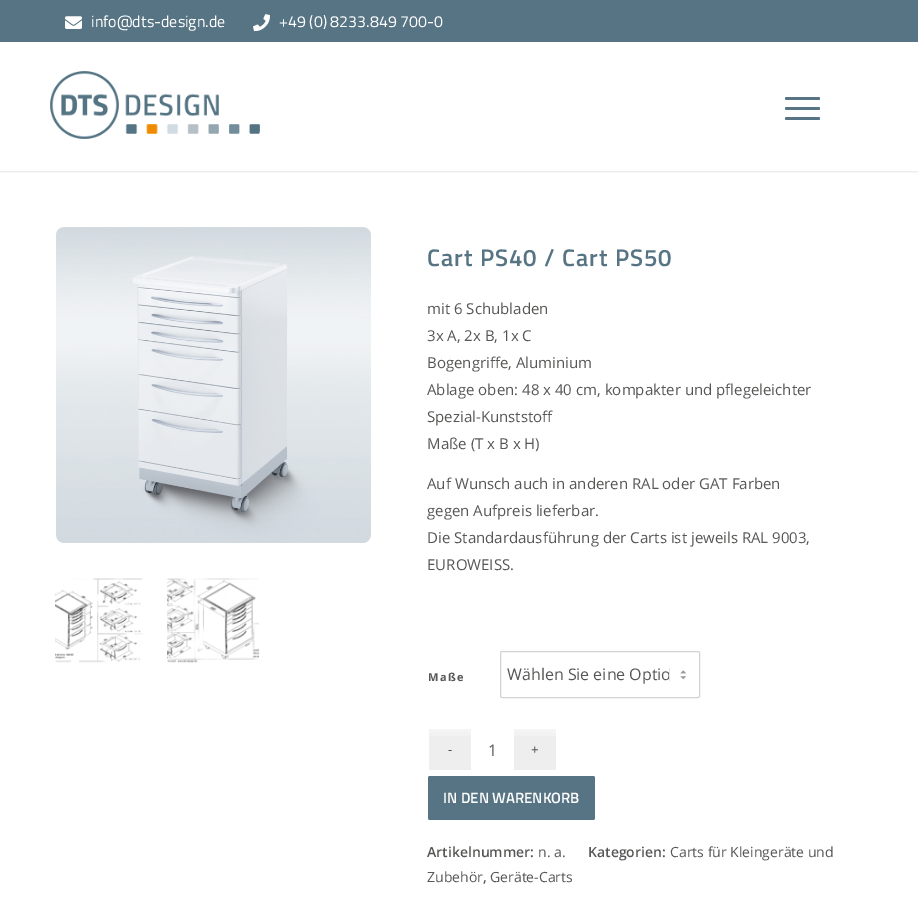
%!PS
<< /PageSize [918 912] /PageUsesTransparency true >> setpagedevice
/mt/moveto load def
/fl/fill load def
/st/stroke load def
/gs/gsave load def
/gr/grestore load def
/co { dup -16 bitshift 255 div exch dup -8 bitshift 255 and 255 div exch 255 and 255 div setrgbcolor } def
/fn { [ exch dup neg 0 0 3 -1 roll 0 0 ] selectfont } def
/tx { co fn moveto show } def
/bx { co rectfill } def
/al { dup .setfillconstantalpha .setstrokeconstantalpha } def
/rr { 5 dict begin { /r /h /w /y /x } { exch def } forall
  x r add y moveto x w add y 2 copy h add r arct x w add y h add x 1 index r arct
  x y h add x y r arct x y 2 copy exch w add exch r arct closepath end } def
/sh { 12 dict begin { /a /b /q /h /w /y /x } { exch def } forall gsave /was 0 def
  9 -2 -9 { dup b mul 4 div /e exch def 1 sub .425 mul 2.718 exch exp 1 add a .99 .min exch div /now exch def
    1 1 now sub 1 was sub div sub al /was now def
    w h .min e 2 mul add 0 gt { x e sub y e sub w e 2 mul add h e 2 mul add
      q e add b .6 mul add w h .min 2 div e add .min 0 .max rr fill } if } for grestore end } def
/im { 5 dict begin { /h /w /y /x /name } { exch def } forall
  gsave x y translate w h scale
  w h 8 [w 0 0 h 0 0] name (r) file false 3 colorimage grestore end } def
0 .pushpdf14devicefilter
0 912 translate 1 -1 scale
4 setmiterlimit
0 0 918 912 16#FFFFFF bx
gs
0 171 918 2 rectclip
16#000000 co
-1 -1 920 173 0 1 .1 sh
gr
0 0 918 42 16#567483 bx
(media/1.raw) 65 16 17 13 im
(media/2.raw) 253 14 17 18 im
(media/3.raw) 50 71 210 68 im
785 107 35 3 1.5 rr fl
785 97 35 3 1.5 rr fl
785 117 35 3 1.5 rr fl
(media/4.raw) 56 227 315 316 im
(media/5.raw) 55 578 88 85 im
(media/6.raw) 167 578 92 85 im
(media/7.raw) 669 668 18 13 im
16#D3D3D3 co
500.5 651.5 199 46 1.5 rr st
429 729 42 41 16#EEEEEE bx
(media/8.raw) 429 729 42 7 im
514 729 42 41 16#EEEEEE bx
(media/8.raw) 514 729 42 7 im
16#567483 co
428 776 167 44 2 rr fl
(info@dts-design.de) 91 27 /TitilliumWeb-Regular 16 16#FFFFFF tx
(+49 \(0\) 8233.849 700-0) 279 27 /TitilliumWeb-Regular 16 16#FFFFFF tx
/TitilliumWeb-SemiBold 24 fn
16#567483 co
427 266 mt 1 0 (Cart PS40 / Cart PS50) ashow
(mit 6 Schubladen) 427 314 /OpenSans-Regular 15 16#575756 tx
(3x A, 2x B, 1x C) 427 341 /OpenSans-Regular 15 16#575756 tx
(Bogengriffe, Aluminium) 427 368 /OpenSans-Regular 15 16#575756 tx
(Ablage oben: 48 x 40 cm, kompakter und pflegeleichter) 427 395 /OpenSans-Regular 15 16#575756 tx
(Spezial-Kunststoff) 427 422 /OpenSans-Regular 15 16#575756 tx
(Maße \(T x B x H\)) 427 449 /OpenSans-Regular 15 16#575756 tx
(Auf Wunsch auch in anderen RAL oder GAT Farben) 427 489 /OpenSans-Regular 15 16#575756 tx
(gegen Aufpreis lieferbar.) 427 516 /OpenSans-Regular 15 16#575756 tx
(Die Standardausführung der Carts ist jeweils RAL 9003,) 427 543 /OpenSans-Regular 15 16#575756 tx
(EUROWEISS.) 427 570 /OpenSans-Regular 15 16#575756 tx
/OpenSans-Bold 11 fn
428 681 mt 1.5 0 (Maße) ashow
gs
507 660 162 29 rectclip
(Wählen Sie eine Optio) 507 680 /OpenSans-Regular 16 16#575756 tx
gr
(-) 448 754 /LiberationSans-Regular 13 16#575756 tx
(1) 488 756 /OpenSans-Regular 16 16#575756 tx
(+) 531 754 /LiberationSans-Regular 13 16#575756 tx
(IN DEN WARENKORB) 443 803 /TitilliumWeb-SemiBold 15 16#FFFFFF tx
(Artikelnummer:) 427 857 /OpenSans-SemiBold 14 16#575756 tx
(n. a.) 538 857 /OpenSans-Regular 14 16#575756 tx
(Kategorien:) 588 857 /OpenSans-SemiBold 14 16#575756 tx
(Carts für Kleingeräte und) 670 857 /OpenSans-Regular 14 16#575756 tx
(Zubehör) 427 882 /OpenSans-Regular 14 16#575756 tx
(,) 483 882 /OpenSans-SemiBold 14 16#575756 tx
(Geräte-Carts) 490 882 /OpenSans-Regular 14 16#575756 tx
.poppdf14devicefilter showpage
